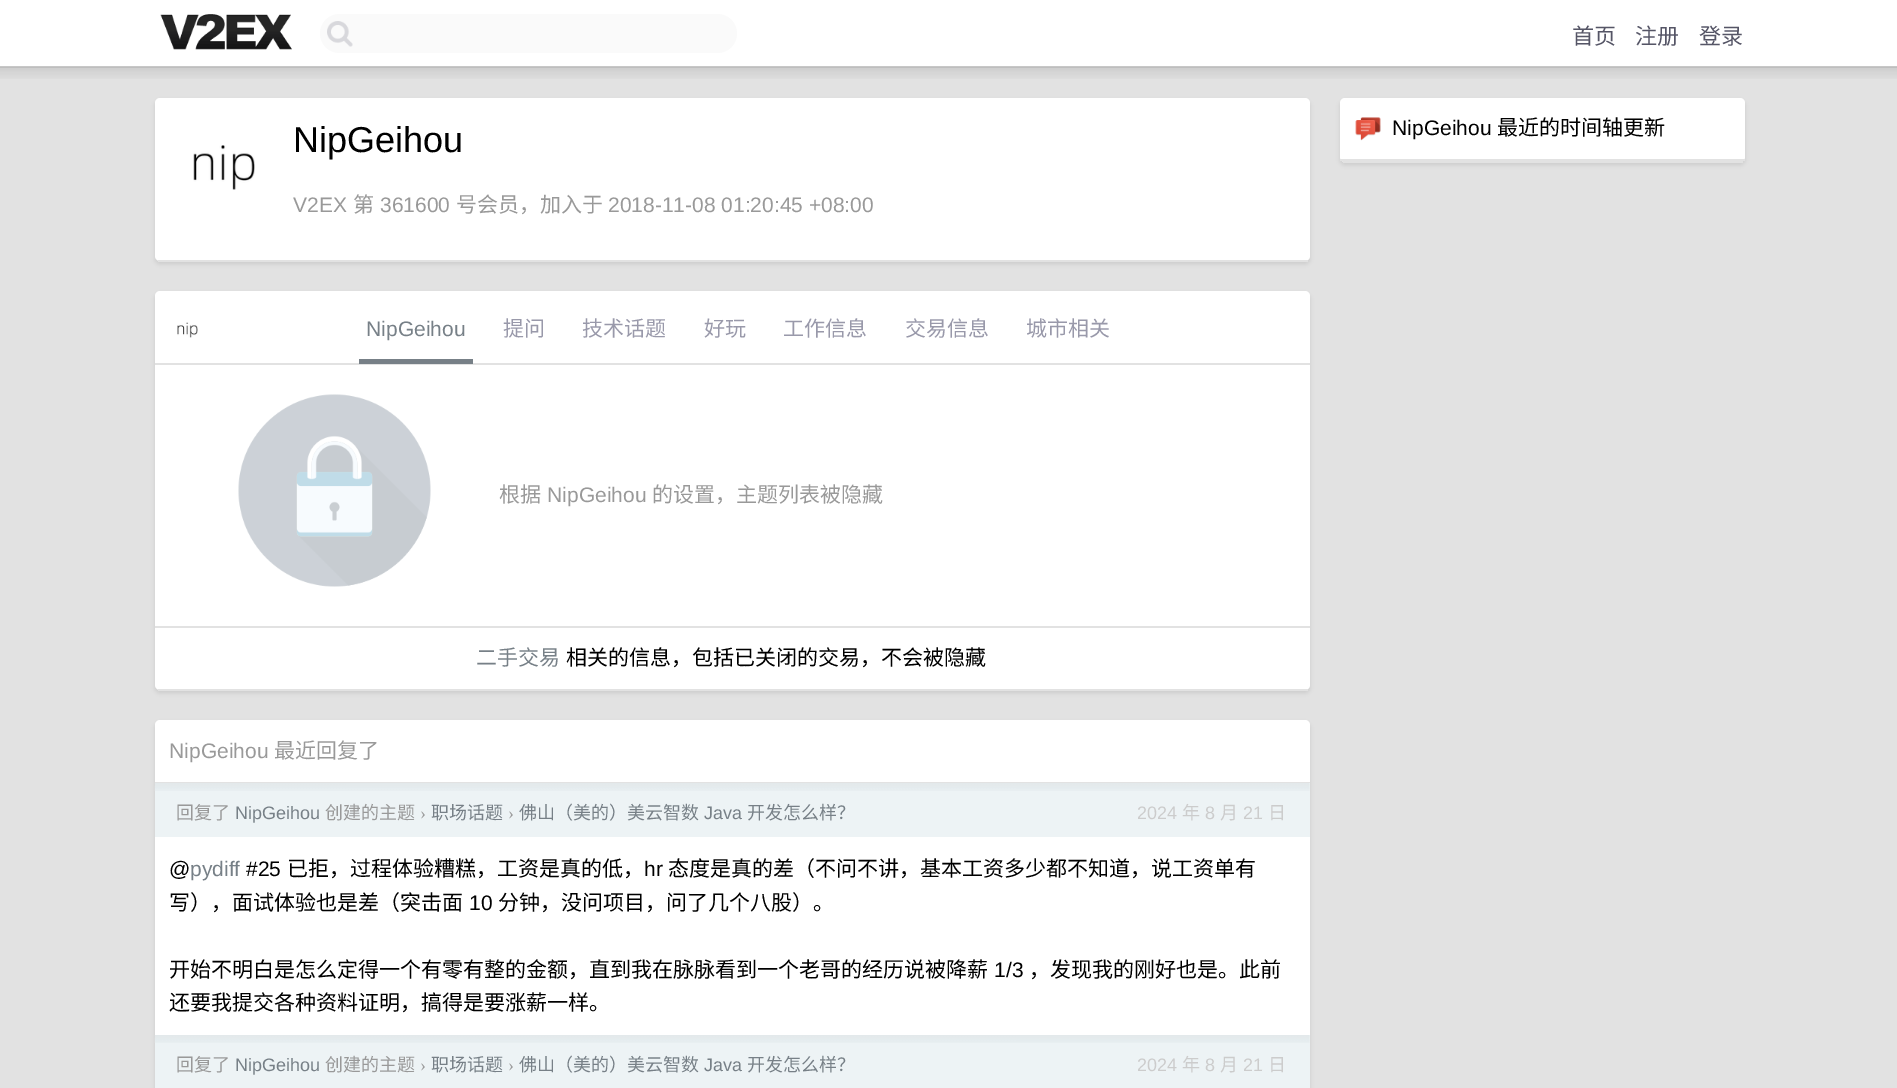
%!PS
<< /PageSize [1897 1088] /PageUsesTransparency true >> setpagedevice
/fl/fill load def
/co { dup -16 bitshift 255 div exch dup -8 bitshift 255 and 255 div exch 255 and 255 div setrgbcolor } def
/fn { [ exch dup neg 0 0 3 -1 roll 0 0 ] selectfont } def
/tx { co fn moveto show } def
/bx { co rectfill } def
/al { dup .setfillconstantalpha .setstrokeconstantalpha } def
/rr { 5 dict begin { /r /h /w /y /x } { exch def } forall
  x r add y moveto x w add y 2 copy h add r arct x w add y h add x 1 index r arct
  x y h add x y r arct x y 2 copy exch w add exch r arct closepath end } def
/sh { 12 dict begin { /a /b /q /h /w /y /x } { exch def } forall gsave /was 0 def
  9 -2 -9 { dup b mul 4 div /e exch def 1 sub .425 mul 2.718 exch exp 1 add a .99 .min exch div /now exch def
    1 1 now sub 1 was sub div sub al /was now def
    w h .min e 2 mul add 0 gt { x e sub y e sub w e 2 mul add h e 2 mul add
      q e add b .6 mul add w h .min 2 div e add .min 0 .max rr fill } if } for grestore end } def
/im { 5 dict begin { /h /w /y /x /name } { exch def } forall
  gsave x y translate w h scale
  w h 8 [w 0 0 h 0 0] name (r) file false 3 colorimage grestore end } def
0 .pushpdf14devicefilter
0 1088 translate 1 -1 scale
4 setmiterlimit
0 0 1897 1088 16#FFFFFF bx
0 66 1897 2 16#C7C7C7 bx
(media/1.raw) 160 14 132 36 im
16#FAFAFA co
320 14 417 39 19.5 rr fl
(media/2.raw) 327 21 26 26 im
0 68 1897 1020 16#E2E2E2 bx
(media/3.raw) 0 67 1897 12 im
16#000000 co
155 101 1155 163 5 2 .1 sh
16#FFFFFF co
155 98 1155 163 5 rr fl
158 260 1150 2 16#E2E2E2 bx
(media/4.raw) 193 145 62 45 im
16#000000 co
155 294 1155 399 5 2 .1 sh
16#FFFFFF co
155 291 1155 399 5 rr fl
158 689 1150 2 16#E2E2E2 bx
155 363 1155 2 16#E2E2E2 bx
(media/5.raw) 177 322 21 16 im
359 359 114 5 16#778087 bx
155 626 1155 2 16#E2E2E2 bx
(media/6.raw) 238 394 193 193 im
16#000000 co
155 723 1155 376 5 2 .1 sh
16#FFFFFF co
155 720 1155 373 5 rr fl
155 782 1155 1 16#E2E2E2 bx
155 783 1155 54 16#EDF3F5 bx
(media/7.raw) 154 783 1156 8 im
155 1035 1155 53 16#EDF3F5 bx
(media/8.raw) 154 1035 1156 8 im
16#000000 co
1340 101 405 64 5 2 .1 sh
16#FFFFFF co
1340 98 405 64 5 rr fl
1343 161 400 2 16#E2E2E2 bx
1340 159 405 2 16#E2E2E2 bx
(media/9.raw) 1355 117 26 24 im
(首页) 1572 44 /NotoSansCJKSC-Regular 22 16#555566 tx
(注册) 1635 44 /NotoSansCJKSC-Regular 22 16#555566 tx
(登录) 1699 44 /NotoSansCJKSC-Regular 22 16#555566 tx
(NipGeihou) 293 152 /LiberationSans-Regular 36 16#000000 tx
(V2EX) 293 212 /LiberationSans-Regular 21 16#999999 tx
(第) 353 212 /NotoSansCJKSC-Regular 21 16#999999 tx
(361600) 380 212 /LiberationSans-Regular 21 16#999999 tx
(号会员，加入于) 456 212 /NotoSansCJKSC-Regular 21 16#999999 tx
(2018-11-08 01:20:45 +08:00) 608 212 /LiberationSans-Regular 21 16#999999 tx
(NipGeihou) 366 336 /LiberationSans-Regular 21 16#778087 tx
(提问) 503 336 /NotoSansCJKSC-Regular 21 16#9999AA tx
(技术话题) 582 336 /NotoSansCJKSC-Regular 21 16#9999AA tx
(好玩) 704 336 /NotoSansCJKSC-Regular 21 16#9999AA tx
(工作信息) 783 336 /NotoSansCJKSC-Regular 21 16#9999AA tx
(交易信息) 905 336 /NotoSansCJKSC-Regular 21 16#9999AA tx
(城市相关) 1026 336 /NotoSansCJKSC-Regular 21 16#9999AA tx
(根据) 499 502 /NotoSansCJKSC-Regular 21 16#999999 tx
(NipGeihou) 547 502 /LiberationSans-Regular 21 16#999999 tx
(的设置，主题列表被隐藏) 652 502 /NotoSansCJKSC-Regular 21 16#999999 tx
(二手交易) 476 665 /NotoSansCJKSC-Regular 21 16#778087 tx
(相关的信息，包括已关闭的交易，不会被隐藏) 566 665 /NotoSansCJKSC-Regular 21 16#000000 tx
(NipGeihou) 169 758 /LiberationSans-Regular 21 16#999999 tx
(最近回复了) 274 758 /NotoSansCJKSC-Regular 21 16#999999 tx
(回复了) 176 819 /NotoSansCJKSC-Regular 18 16#999999 tx
(NipGeihou) 235 819 /LiberationSans-Regular 18 16#778087 tx
(创建的主题) 325 819 /NotoSansCJKSC-Regular 18 16#999999 tx
(›) 420 819 /LiberationSerif-Regular 18 16#999999 tx
(职场话题) 431 819 /NotoSansCJKSC-Regular 18 16#778087 tx
(›) 508 819 /LiberationSerif-Regular 18 16#999999 tx
(佛山（美的）美云智数) 519 819 /NotoSansCJKSC-Regular 18 16#778087 tx
(Java) 704 819 /LiberationSans-Regular 18 16#778087 tx
(开发怎么样？) 747 819 /NotoSansCJKSC-Regular 18 16#778087 tx
(2024) 1137 819 /LiberationSans-Regular 18 16#CCCCCC tx
(年) 1182 819 /NotoSansCJKSC-Regular 18 16#CCCCCC tx
(8) 1205 819 /LiberationSans-Regular 18 16#CCCCCC tx
(月) 1220 819 /NotoSansCJKSC-Regular 18 16#CCCCCC tx
(21) 1243 819 /LiberationSans-Regular 18 16#CCCCCC tx
(日) 1268 819 /NotoSansCJKSC-Regular 18 16#CCCCCC tx
(@) 169 876 /LiberationSans-Regular 21 16#000000 tx
(pydiff) 190 876 /LiberationSans-Regular 21 16#778087 tx
(#25) 246 876 /LiberationSans-Regular 21 16#000000 tx
(已拒，过程体验糟糕，工资是真的低，) 287 876 /NotoSansCJKSC-Regular 21 16#000000 tx
(hr) 644 876 /LiberationSans-Regular 21 16#000000 tx
(态度是真的差（不问不讲，基本工资多少都不知道，说工资单有) 668 876 /NotoSansCJKSC-Regular 21 16#000000 tx
(写），面试体验也是差（突击面) 169 910 /NotoSansCJKSC-Regular 21 16#000000 tx
(10) 469 910 /LiberationSans-Regular 21 16#000000 tx
(分钟，没问项目，问了几个八股）。) 498 910 /NotoSansCJKSC-Regular 21 16#000000 tx
(开始不明白是怎么定得一个有零有整的金额，直到我在脉脉看到一个老哥的经历说被降薪) 169 977 /NotoSansCJKSC-Regular 21 16#000000 tx
(1/3) 994 977 /LiberationSans-Regular 21 16#000000 tx
(，发现我的刚好也是。此前) 1029 977 /NotoSansCJKSC-Regular 21 16#000000 tx
(还要我提交各种资料证明，搞得是要涨薪一样。) 169 1010 /NotoSansCJKSC-Regular 21 16#000000 tx
(回复了) 176 1071 /NotoSansCJKSC-Regular 18 16#999999 tx
(NipGeihou) 235 1071 /LiberationSans-Regular 18 16#778087 tx
(创建的主题) 325 1071 /NotoSansCJKSC-Regular 18 16#999999 tx
(›) 420 1071 /LiberationSerif-Regular 18 16#999999 tx
(职场话题) 431 1071 /NotoSansCJKSC-Regular 18 16#778087 tx
(›) 508 1071 /LiberationSerif-Regular 18 16#999999 tx
(佛山（美的）美云智数) 519 1071 /NotoSansCJKSC-Regular 18 16#778087 tx
(Java) 704 1071 /LiberationSans-Regular 18 16#778087 tx
(开发怎么样？) 747 1071 /NotoSansCJKSC-Regular 18 16#778087 tx
(2024) 1137 1071 /LiberationSans-Regular 18 16#CCCCCC tx
(年) 1182 1071 /NotoSansCJKSC-Regular 18 16#CCCCCC tx
(8) 1205 1071 /LiberationSans-Regular 18 16#CCCCCC tx
(月) 1220 1071 /NotoSansCJKSC-Regular 18 16#CCCCCC tx
(21) 1243 1071 /LiberationSans-Regular 18 16#CCCCCC tx
(日) 1268 1071 /NotoSansCJKSC-Regular 18 16#CCCCCC tx
(NipGeihou) 1392 135 /LiberationSans-Regular 21 16#000000 tx
(最近的时间轴更新) 1497 135 /NotoSansCJKSC-Regular 21 16#000000 tx
.poppdf14devicefilter showpage
